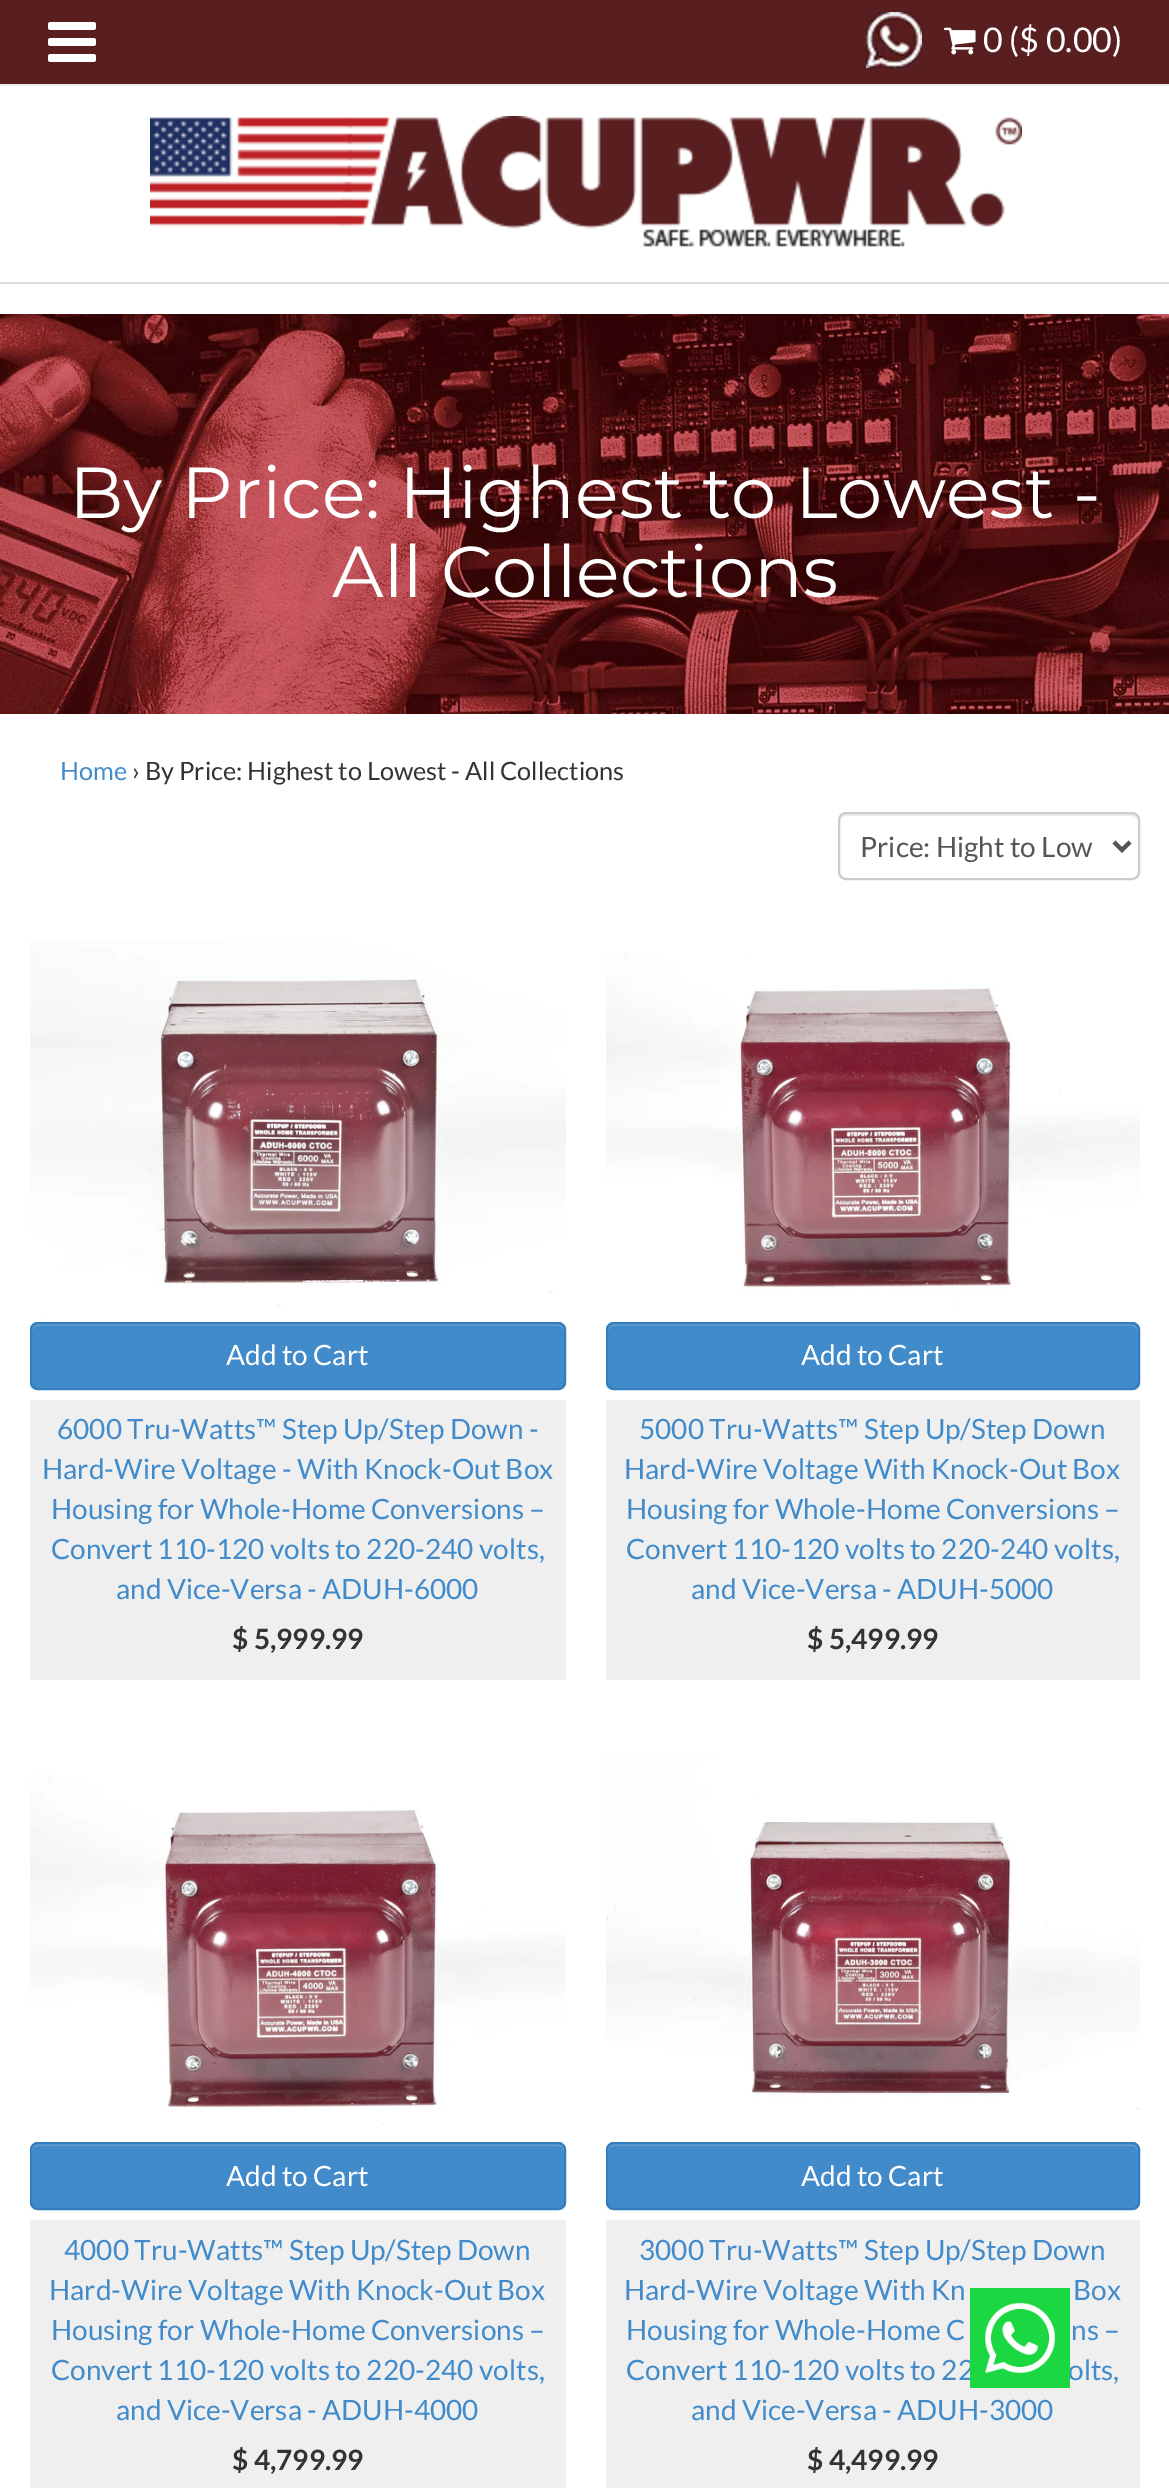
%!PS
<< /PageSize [1169 2488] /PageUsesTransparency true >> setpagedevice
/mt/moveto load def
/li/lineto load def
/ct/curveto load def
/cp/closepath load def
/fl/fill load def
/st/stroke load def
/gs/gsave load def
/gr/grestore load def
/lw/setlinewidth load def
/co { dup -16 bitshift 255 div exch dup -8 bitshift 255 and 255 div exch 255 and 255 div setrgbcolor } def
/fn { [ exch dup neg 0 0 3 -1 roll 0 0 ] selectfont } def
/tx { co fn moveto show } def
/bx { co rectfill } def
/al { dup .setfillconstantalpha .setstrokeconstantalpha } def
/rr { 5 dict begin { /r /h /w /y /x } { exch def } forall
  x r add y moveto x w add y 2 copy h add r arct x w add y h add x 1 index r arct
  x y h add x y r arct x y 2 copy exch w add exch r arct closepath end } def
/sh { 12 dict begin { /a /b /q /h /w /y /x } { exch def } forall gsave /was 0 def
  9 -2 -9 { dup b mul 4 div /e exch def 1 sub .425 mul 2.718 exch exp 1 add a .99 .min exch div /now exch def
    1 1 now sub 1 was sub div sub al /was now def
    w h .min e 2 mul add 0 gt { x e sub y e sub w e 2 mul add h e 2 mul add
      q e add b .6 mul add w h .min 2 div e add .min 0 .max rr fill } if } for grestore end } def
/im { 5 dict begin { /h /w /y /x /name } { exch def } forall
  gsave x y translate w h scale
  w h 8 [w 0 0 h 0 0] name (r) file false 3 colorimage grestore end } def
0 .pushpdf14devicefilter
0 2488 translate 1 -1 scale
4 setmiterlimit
0 0 1169 2488 16#FFFFFF bx
0 282 1169 2 16#DDDDDD bx
0 0 1169 84 16#591E20 bx
0 84 1169 2 16#EEEEEE bx
(media/1.raw) 48 22 48 40 im
(media/2.raw) 866 12 56 56 im
(media/3.raw) 944 27 32 28 im
(media/4.raw) 150 116 872 131 im
(media/5.raw) 0 314 1169 400 im
16#ECECEC co
846 816 mt 1132 816 li 1135 816 1138 819 1138 822 ct 1138 820 li 1138 817 1135 814 1132 814 ct 846 814 li 843 814 840 817 840 820 ct 840 822 li 840 819 843 816 846 816 ct cp fl
16#CCCCCC co
2 lw
839 813 300 66 7 rr st
16#555555 co
4 lw
1114 842 mt 1122 850 li 1130 842 li st
(media/6.raw) 30 940 536 376 im
gs
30 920 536 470 rectclip
16#000000 co
30 1324 536 68 8 1 .07 sh
gr
16#428BCA co
30 1322 536 68 8 rr fl
16#5E9CD2 co
38 1326 mt 558 1326 li 561 1326 564 1329 564 1332 ct 564 1330 li 564 1327 561 1324 558 1324 ct 38 1324 li 35 1324 32 1327 32 1330 ct 32 1332 li 32 1329 35 1326 38 1326 ct cp fl
16#357EBD co
2 lw
31 1323 534 66 7 rr st
30 1400 536 280 16#EFEFEF bx
(media/7.raw) 606 953 534 352 im
gs
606 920 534 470 rectclip
16#000000 co
606 1324 534 68 8 1 .07 sh
gr
16#428BCA co
606 1322 534 68 8 rr fl
16#5E9CD2 co
614 1326 mt 1132 1326 li 1135 1326 1138 1329 1138 1332 ct 1138 1330 li 1138 1327 1135 1324 1132 1324 ct 614 1324 li 611 1324 608 1327 608 1330 ct 608 1332 li 608 1329 611 1326 614 1326 ct cp fl
16#357EBD co
607 1323 532 66 7 rr st
606 1400 534 280 16#EFEFEF bx
(media/8.raw) 30 1775 536 350 im
gs
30 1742 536 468 rectclip
16#000000 co
30 2144 536 68 8 1 .07 sh
gr
16#428BCA co
30 2142 536 68 8 rr fl
16#5E9CD2 co
38 2146 mt 558 2146 li 561 2146 564 2149 564 2152 ct 564 2150 li 564 2147 561 2144 558 2144 ct 38 2144 li 35 2144 32 2147 32 2150 ct 32 2152 li 32 2149 35 2146 38 2146 ct cp fl
16#357EBD co
31 2143 534 66 7 rr st
30 2220 536 268 16#EFEFEF bx
(media/9.raw) 606 1753 534 357 im
gs
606 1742 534 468 rectclip
16#000000 co
606 2144 534 68 8 1 .07 sh
gr
16#428BCA co
606 2142 534 68 8 rr fl
16#5E9CD2 co
614 2146 mt 1132 2146 li 1135 2146 1138 2149 1138 2152 ct 1138 2150 li 1138 2147 1135 2144 1132 2144 ct 614 2144 li 611 2144 608 2147 608 2150 ct 608 2152 li 608 2149 611 2146 614 2146 ct cp fl
16#357EBD co
607 2143 532 66 7 rr st
606 2220 534 268 16#EFEFEF bx
(0 \($ 0.00\)) 983 52 /Lato-Regular 34 16#FFFFFF tx
(By Price: Highest to Lowest -) 69 518 /Montserrat-Regular 72 16#FFFFFF tx
(All Collections) 332 597 /Montserrat-Regular 72 16#FFFFFF tx
(Home) 60 780 /Lato-Regular 25.25 16#428BCA tx
(› By Price: Highest to Lowest - All Collections) 132 780 /Lato-Regular 25.25 16#333333 tx
(Price: Hight to Low) 860 857 /Lato-Regular 28 16#555555 tx
(Add to Cart) 226 1365 /Lato-Regular 28 16#FFFFFF tx
(6000 Tru-Watts™ Step Up/Step Down -) 57 1439 /Lato-Regular 28 16#428BCA tx
(Hard-Wire Voltage - With Knock-Out Box) 42 1479 /Lato-Regular 28 16#428BCA tx
(Housing for Whole-Home Conversions –) 51 1519 /Lato-Regular 28 16#428BCA tx
(Convert 110-120 volts to 220-240 volts,) 51 1559 /Lato-Regular 28 16#428BCA tx
(and Vice-Versa - ADUH-6000) 116 1599 /Lato-Regular 28 16#428BCA tx
($ 5,999.99) 232 1649 /Lato-Bold 28 16#333333 tx
(Add to Cart) 801 1365 /Lato-Regular 28 16#FFFFFF tx
(5000 Tru-Watts™ Step Up/Step Down) 639 1439 /Lato-Regular 28 16#428BCA tx
(Hard-Wire Voltage With Knock-Out Box) 624 1479 /Lato-Regular 28 16#428BCA tx
(Housing for Whole-Home Conversions –) 626 1519 /Lato-Regular 28 16#428BCA tx
(Convert 110-120 volts to 220-240 volts,) 626 1559 /Lato-Regular 28 16#428BCA tx
(and Vice-Versa - ADUH-5000) 691 1599 /Lato-Regular 28 16#428BCA tx
($ 5,499.99) 807 1649 /Lato-Bold 28 16#333333 tx
(Add to Cart) 226 2186 /Lato-Regular 28 16#FFFFFF tx
(4000 Tru-Watts™ Step Up/Step Down) 64 2260 /Lato-Regular 28 16#428BCA tx
(Hard-Wire Voltage With Knock-Out Box) 49 2300 /Lato-Regular 28 16#428BCA tx
(Housing for Whole-Home Conversions –) 51 2340 /Lato-Regular 28 16#428BCA tx
(Convert 110-120 volts to 220-240 volts,) 51 2380 /Lato-Regular 28 16#428BCA tx
(and Vice-Versa - ADUH-4000) 116 2420 /Lato-Regular 28 16#428BCA tx
($ 4,799.99) 232 2470 /Lato-Bold 28 16#333333 tx
(Add to Cart) 801 2186 /Lato-Regular 28 16#FFFFFF tx
(3000 Tru-Watts™ Step Up/Step Down) 639 2260 /Lato-Regular 28 16#428BCA tx
(Hard-Wire Voltage With Kn) 624 2300 /Lato-Regular 28 16#428BCA tx
(Box) 1073 2300 /Lato-Regular 28 16#428BCA tx
(Housing for Whole-Home C) 626 2340 /Lato-Regular 28 16#428BCA tx
(ns –) 1071 2340 /Lato-Regular 28 16#428BCA tx
(Convert 110-120 volts to 22) 626 2380 /Lato-Regular 28 16#428BCA tx
(olts,) 1068 2380 /Lato-Regular 28 16#428BCA tx
(and Vice-Versa - ADUH-3000) 691 2420 /Lato-Regular 28 16#428BCA tx
($ 4,499.99) 807 2470 /Lato-Bold 28 16#333333 tx
(media/10.raw) 970 2288 100 100 im
.poppdf14devicefilter showpage
